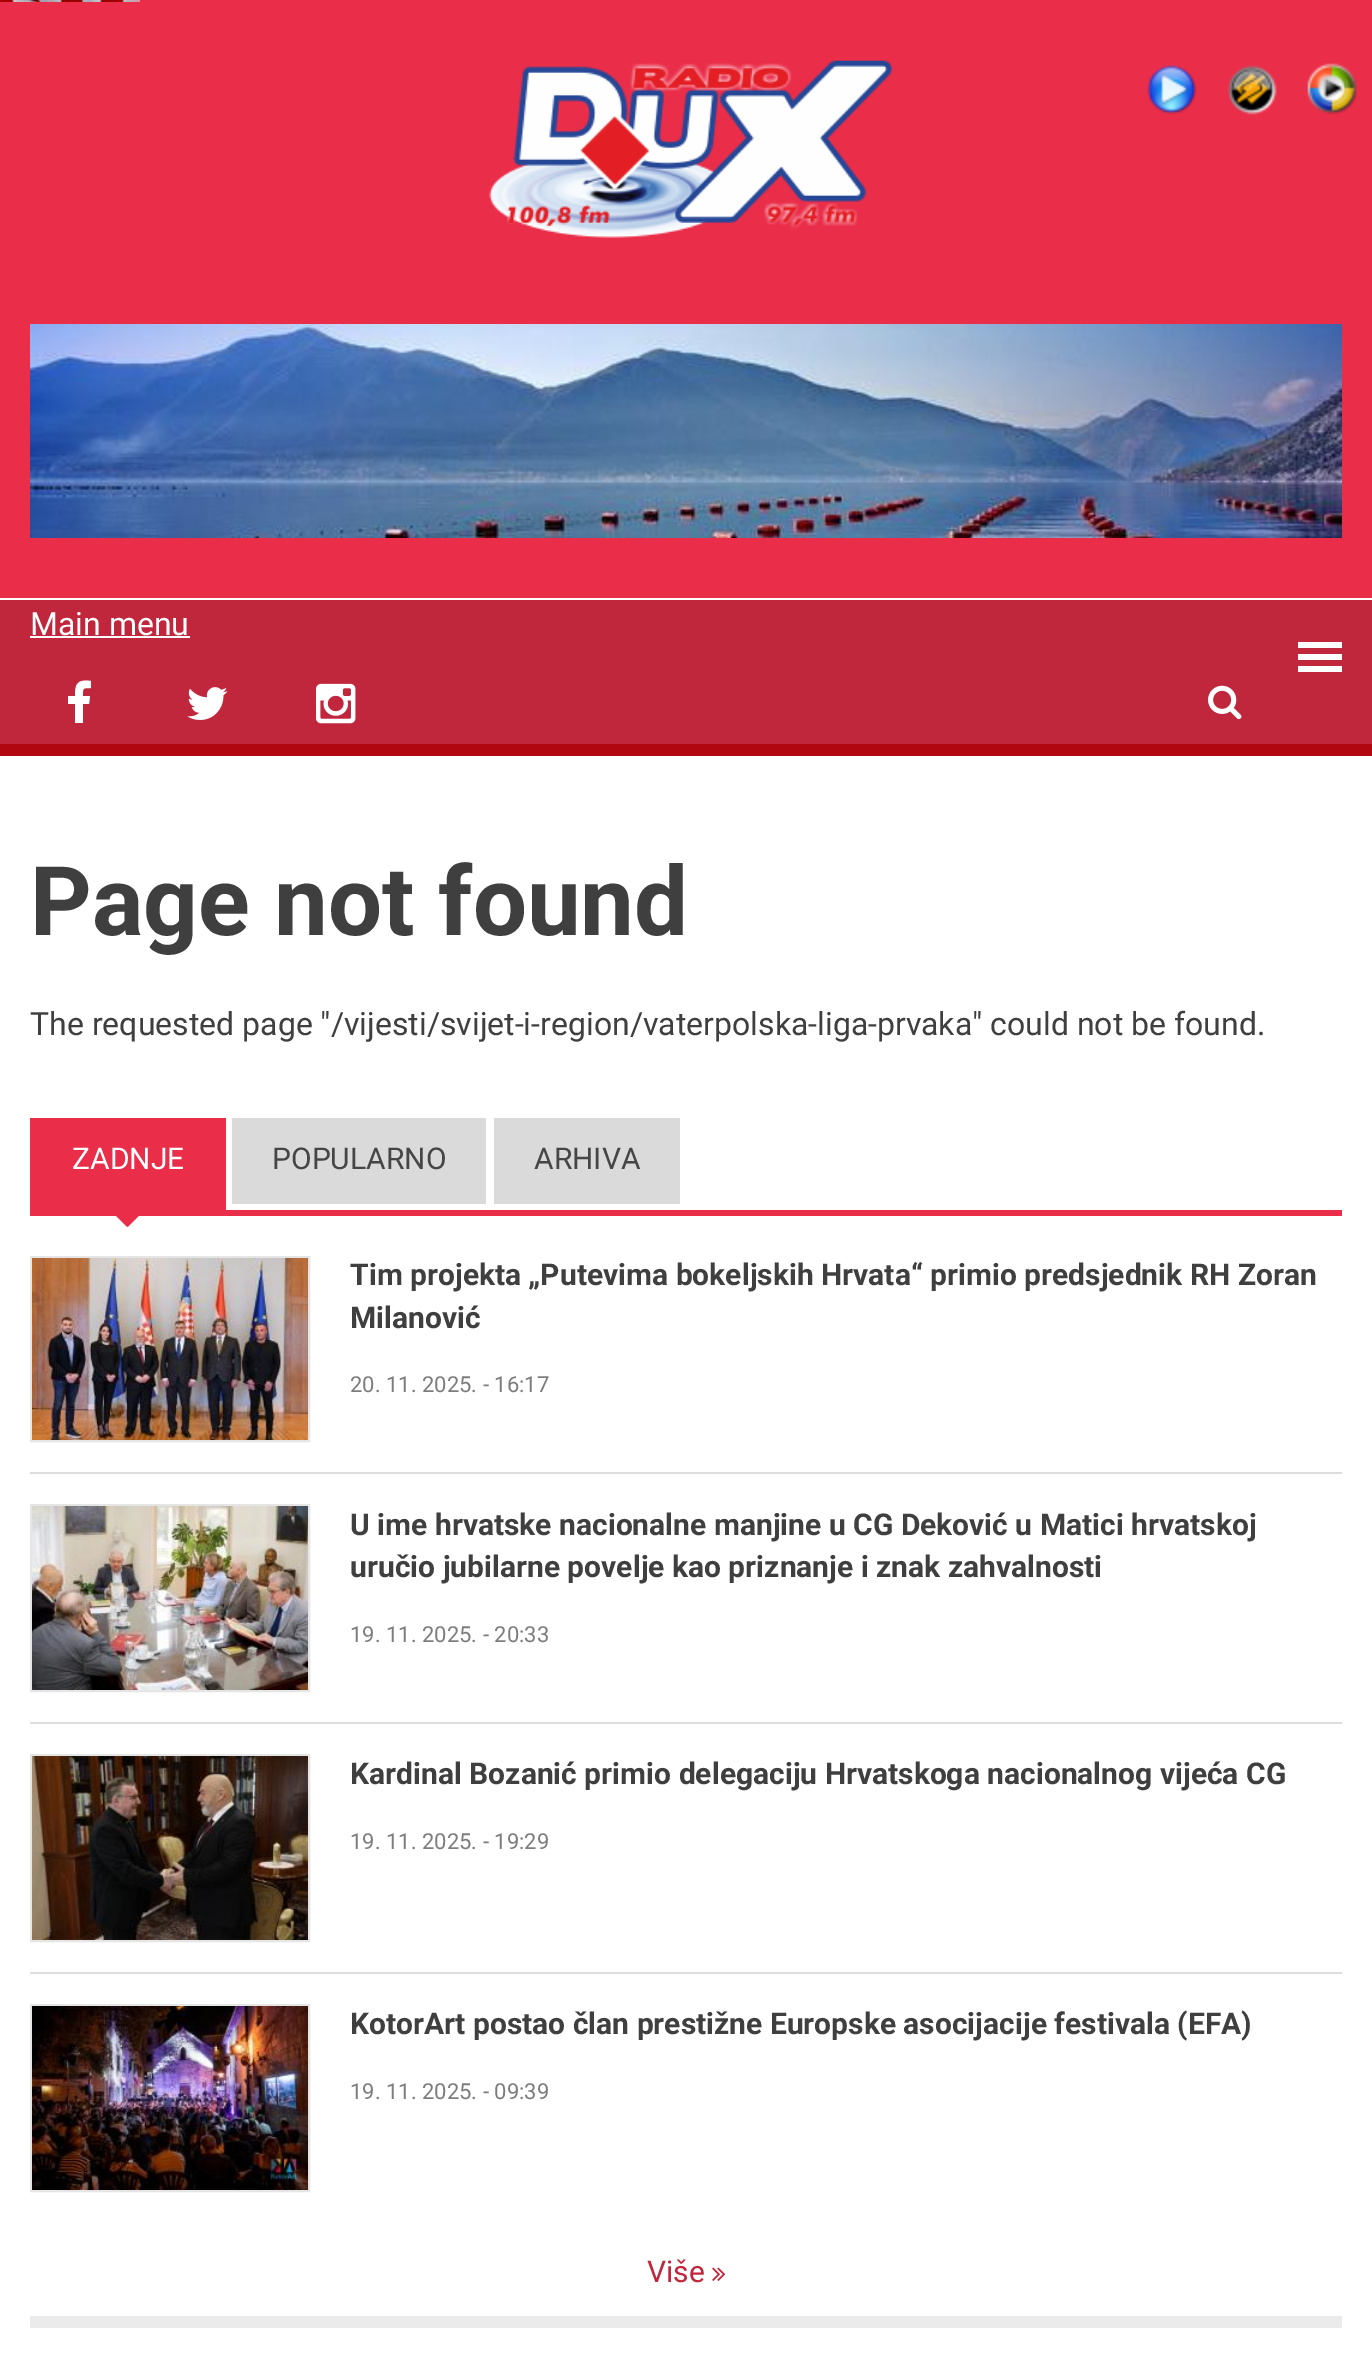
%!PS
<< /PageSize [1372 2362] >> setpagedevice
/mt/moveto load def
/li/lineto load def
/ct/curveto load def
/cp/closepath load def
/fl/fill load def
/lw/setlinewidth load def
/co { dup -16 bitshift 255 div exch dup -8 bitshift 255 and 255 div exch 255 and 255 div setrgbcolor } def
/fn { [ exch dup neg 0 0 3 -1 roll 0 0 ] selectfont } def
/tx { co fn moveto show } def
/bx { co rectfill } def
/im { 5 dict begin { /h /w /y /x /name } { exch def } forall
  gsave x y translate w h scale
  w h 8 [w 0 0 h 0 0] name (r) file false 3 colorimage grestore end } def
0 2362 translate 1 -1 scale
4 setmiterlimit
0 0 1372 2362 16#EA2D49 bx
(media/1.raw) 0 0 140 2 im
(media/2.raw) 1147 65 50 50 im
(media/3.raw) 1227 65 50 50 im
(media/4.raw) 1307 63 50 52 im
0 598 1372 2 16#FFFFFF bx
(media/5.raw) 489 60 403 178 im
(media/6.raw) 30 324 1312 214 im
0 600 1372 144 16#C0273C bx
0 744 1372 12 16#B00711 bx
30 636 160 2 16#FFFFFF bx
68 704 mt 68 696 li 75 696 li 75 684 77 679 91 681 ct 91 688 li 82 688 83 688 83 696 ct 90 696 li 89 704 li 83 704 li 83 723 li 75 723 li 75 704 li cp fl
(media/7.raw) 187 687 41 33 im
(media/8.raw) 316 683 40 41 im
(media/9.raw) 1208 685 34 35 im
1298 642 44 6 16#FFFFFF bx
1298 654 44 6 16#FFFFFF bx
1298 666 44 6 16#FFFFFF bx
0 756 1372 1606 16#FFFFFF bx
30 1210 1312 6 16#EA2D49 bx
32 1120 192 84 16#EA2D49 bx
30 1118 196 2 16#EA2D49 bx
224 1118 2 92 16#EA2D49 bx
30 1204 196 6 16#EA2D49 bx
30 1118 2 92 16#EA2D49 bx
(media/10.raw) 116 1216 23 11 im
232 1120 254 84 16#DADADA bx
230 1118 258 2 16#DADADA bx
486 1118 2 2 16#FFFFFF bx
230 1118 2 2 16#FFFFFF bx
494 1120 186 84 16#DADADA bx
492 1118 190 2 16#DADADA bx
680 1118 2 2 16#FFFFFF bx
492 1118 2 2 16#FFFFFF bx
30 1472 1312 2 16#DDDDDD bx
16#E5E5E5 co
2 lw
31 1257 278 184 rectstroke
(media/11.raw) 32 1258 276 182 im
30 1722 1312 2 16#DDDDDD bx
16#E5E5E5 co
31 1505 278 186 rectstroke
(media/12.raw) 32 1506 276 184 im
30 1972 1312 2 16#DDDDDD bx
16#E5E5E5 co
31 1755 278 186 rectstroke
(media/13.raw) 32 1756 276 184 im
31 2005 278 186 rectstroke
(media/14.raw) 32 2006 276 184 im
30 2316 1312 12 16#EBEBEB bx
(media/15.raw) 712 2267 14 14 im
(Main menu) 30 635 /Roboto-Regular 32 16#FFFFFF tx
(Page not found) 30 935 /Roboto-Bold 96 16#3F3F3F tx
(The requested page "/vijesti/svijet-i-region/vaterpolska-liga-prvaka" could not be found.) 30 1035 /Roboto-Regular 32 16#3F3F3F tx
(ZADNJE) 72 1169 /Roboto-Regular 30 16#FFFFFF tx
(POPULARNO) 272 1169 /Roboto-Regular 30 16#464646 tx
(ARHIVA) 534 1169 /Roboto-Regular 30 16#464646 tx
(Tim projekta „Putevima bokeljskih Hrvata“ primio predsjednik RH Zoran) 350 1285 /Roboto-Bold 30 16#3F3F3F tx
(Milanović) 350 1328 /Roboto-Bold 30 16#3F3F3F tx
(20. 11. 2025. - 16:17) 350 1392 /Roboto-Regular 22 16#7D7D7D tx
(U ime hrvatske nacionalne manjine u CG Deković u Matici hrvatskoj) 350 1535 /Roboto-Bold 30 16#3F3F3F tx
(uručio jubilarne povelje kao priznanje i znak zahvalnosti) 350 1577 /Roboto-Bold 30 16#3F3F3F tx
(19. 11. 2025. - 20:33) 350 1642 /Roboto-Regular 22 16#7D7D7D tx
(Kardinal Bozanić primio delegaciju Hrvatskoga nacionalnog vijeća CG) 350 1784 /Roboto-Bold 30 16#3F3F3F tx
(19. 11. 2025. - 19:29) 350 1849 /Roboto-Regular 22 16#7D7D7D tx
(KotorArt postao član prestižne Europske asocijacije festivala \(EFA\)) 350 2034 /Roboto-Bold 30 16#3F3F3F tx
(19. 11. 2025. - 09:39) 350 2099 /Roboto-Regular 22 16#7D7D7D tx
(Više) 647 2282 /Roboto-Regular 30 16#C0273C tx
showpage
